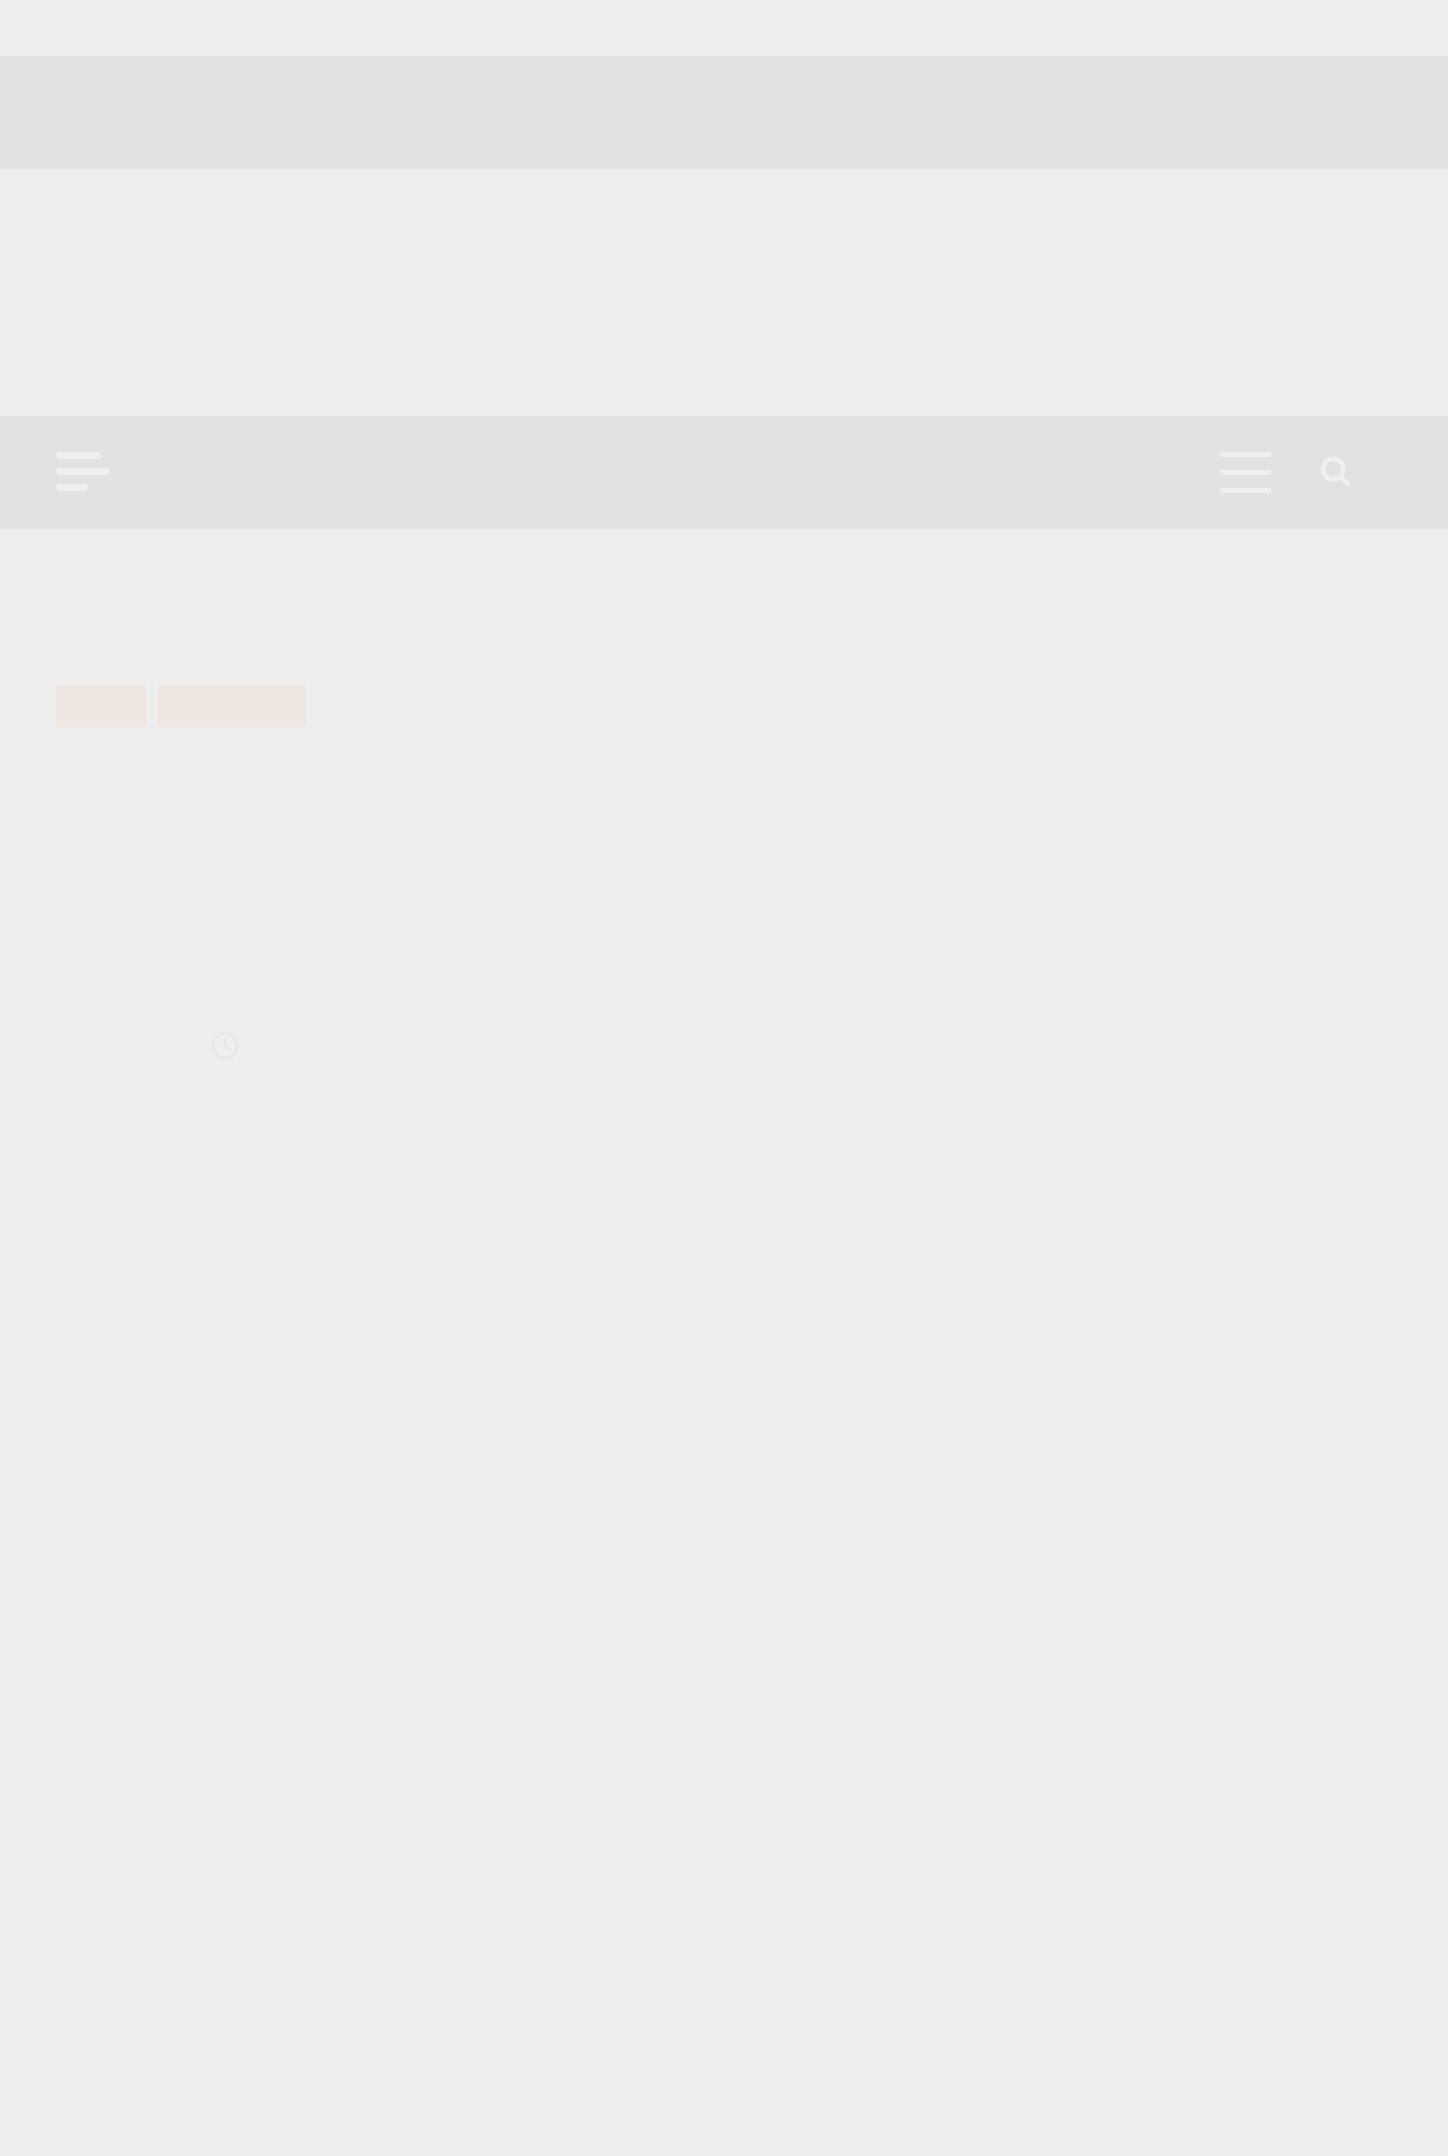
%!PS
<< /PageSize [1448 2156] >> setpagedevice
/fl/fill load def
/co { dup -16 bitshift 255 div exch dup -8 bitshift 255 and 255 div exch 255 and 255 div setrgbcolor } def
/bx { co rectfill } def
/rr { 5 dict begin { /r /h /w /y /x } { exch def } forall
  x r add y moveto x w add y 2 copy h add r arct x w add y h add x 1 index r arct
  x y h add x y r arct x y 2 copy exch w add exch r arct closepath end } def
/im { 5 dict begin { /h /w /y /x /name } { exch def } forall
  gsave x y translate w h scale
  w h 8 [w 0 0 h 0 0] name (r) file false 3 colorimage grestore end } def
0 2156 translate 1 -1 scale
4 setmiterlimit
0 0 1448 2156 16#EEEEEE bx
0 56 1448 113 16#E2E2E2 bx
0 416 1448 113 16#E2E2E2 bx
16#EFEFEF co
56 452 45 7 3.5 rr fl
56 468 54 7 3.5 rr fl
56 484 32 7 3.5 rr fl
1220 470 51 5 16#EFEFEF bx
1220 452 51 5 16#EFEFEF bx
1220 488 51 5 16#EFEFEF bx
(media/1.raw) 1320 456 30 30 im
56 686 90 41 16#EFE6E2 bx
158 686 148 41 16#EFE6E2 bx
(media/2.raw) 211 1032 28 28 im
showpage
